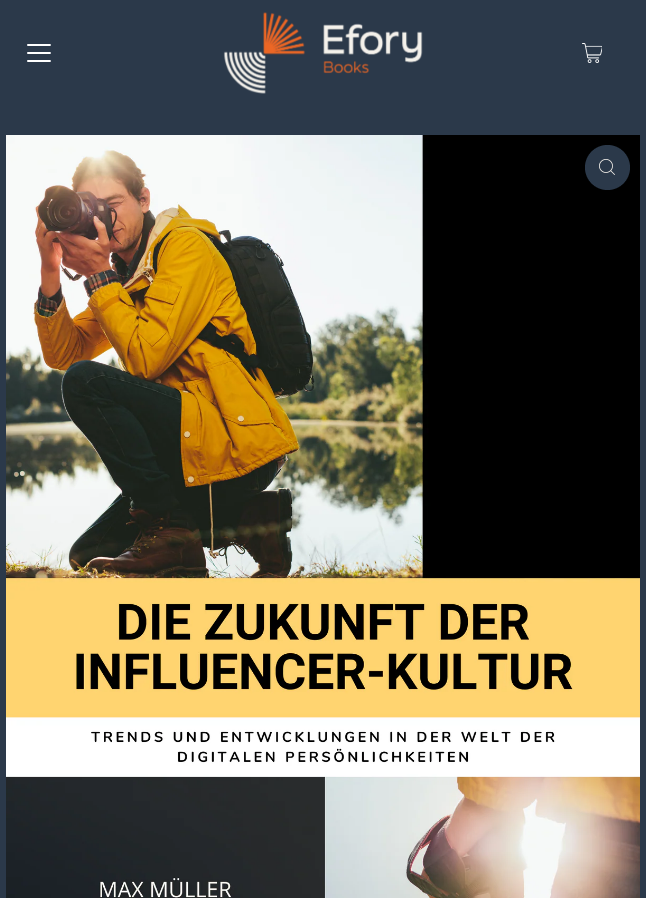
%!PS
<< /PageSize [646 898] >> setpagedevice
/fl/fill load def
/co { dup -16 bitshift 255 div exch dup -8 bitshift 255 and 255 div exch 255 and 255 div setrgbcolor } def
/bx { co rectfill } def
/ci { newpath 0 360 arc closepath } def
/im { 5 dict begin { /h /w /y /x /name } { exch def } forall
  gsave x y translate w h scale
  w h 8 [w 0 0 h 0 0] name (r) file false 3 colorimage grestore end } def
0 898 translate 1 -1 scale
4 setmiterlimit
0 0 646 898 16#2B394A bx
(media/1.raw) 27 44 24 18 im
(media/2.raw) 223 12 200 82 im
(media/3.raw) 582 43 20 20 im
(media/4.raw) 6 135 634 763 im
607.5 167.5 22.5 ci fl
(media/5.raw) 599 159 16 16 im
showpage
